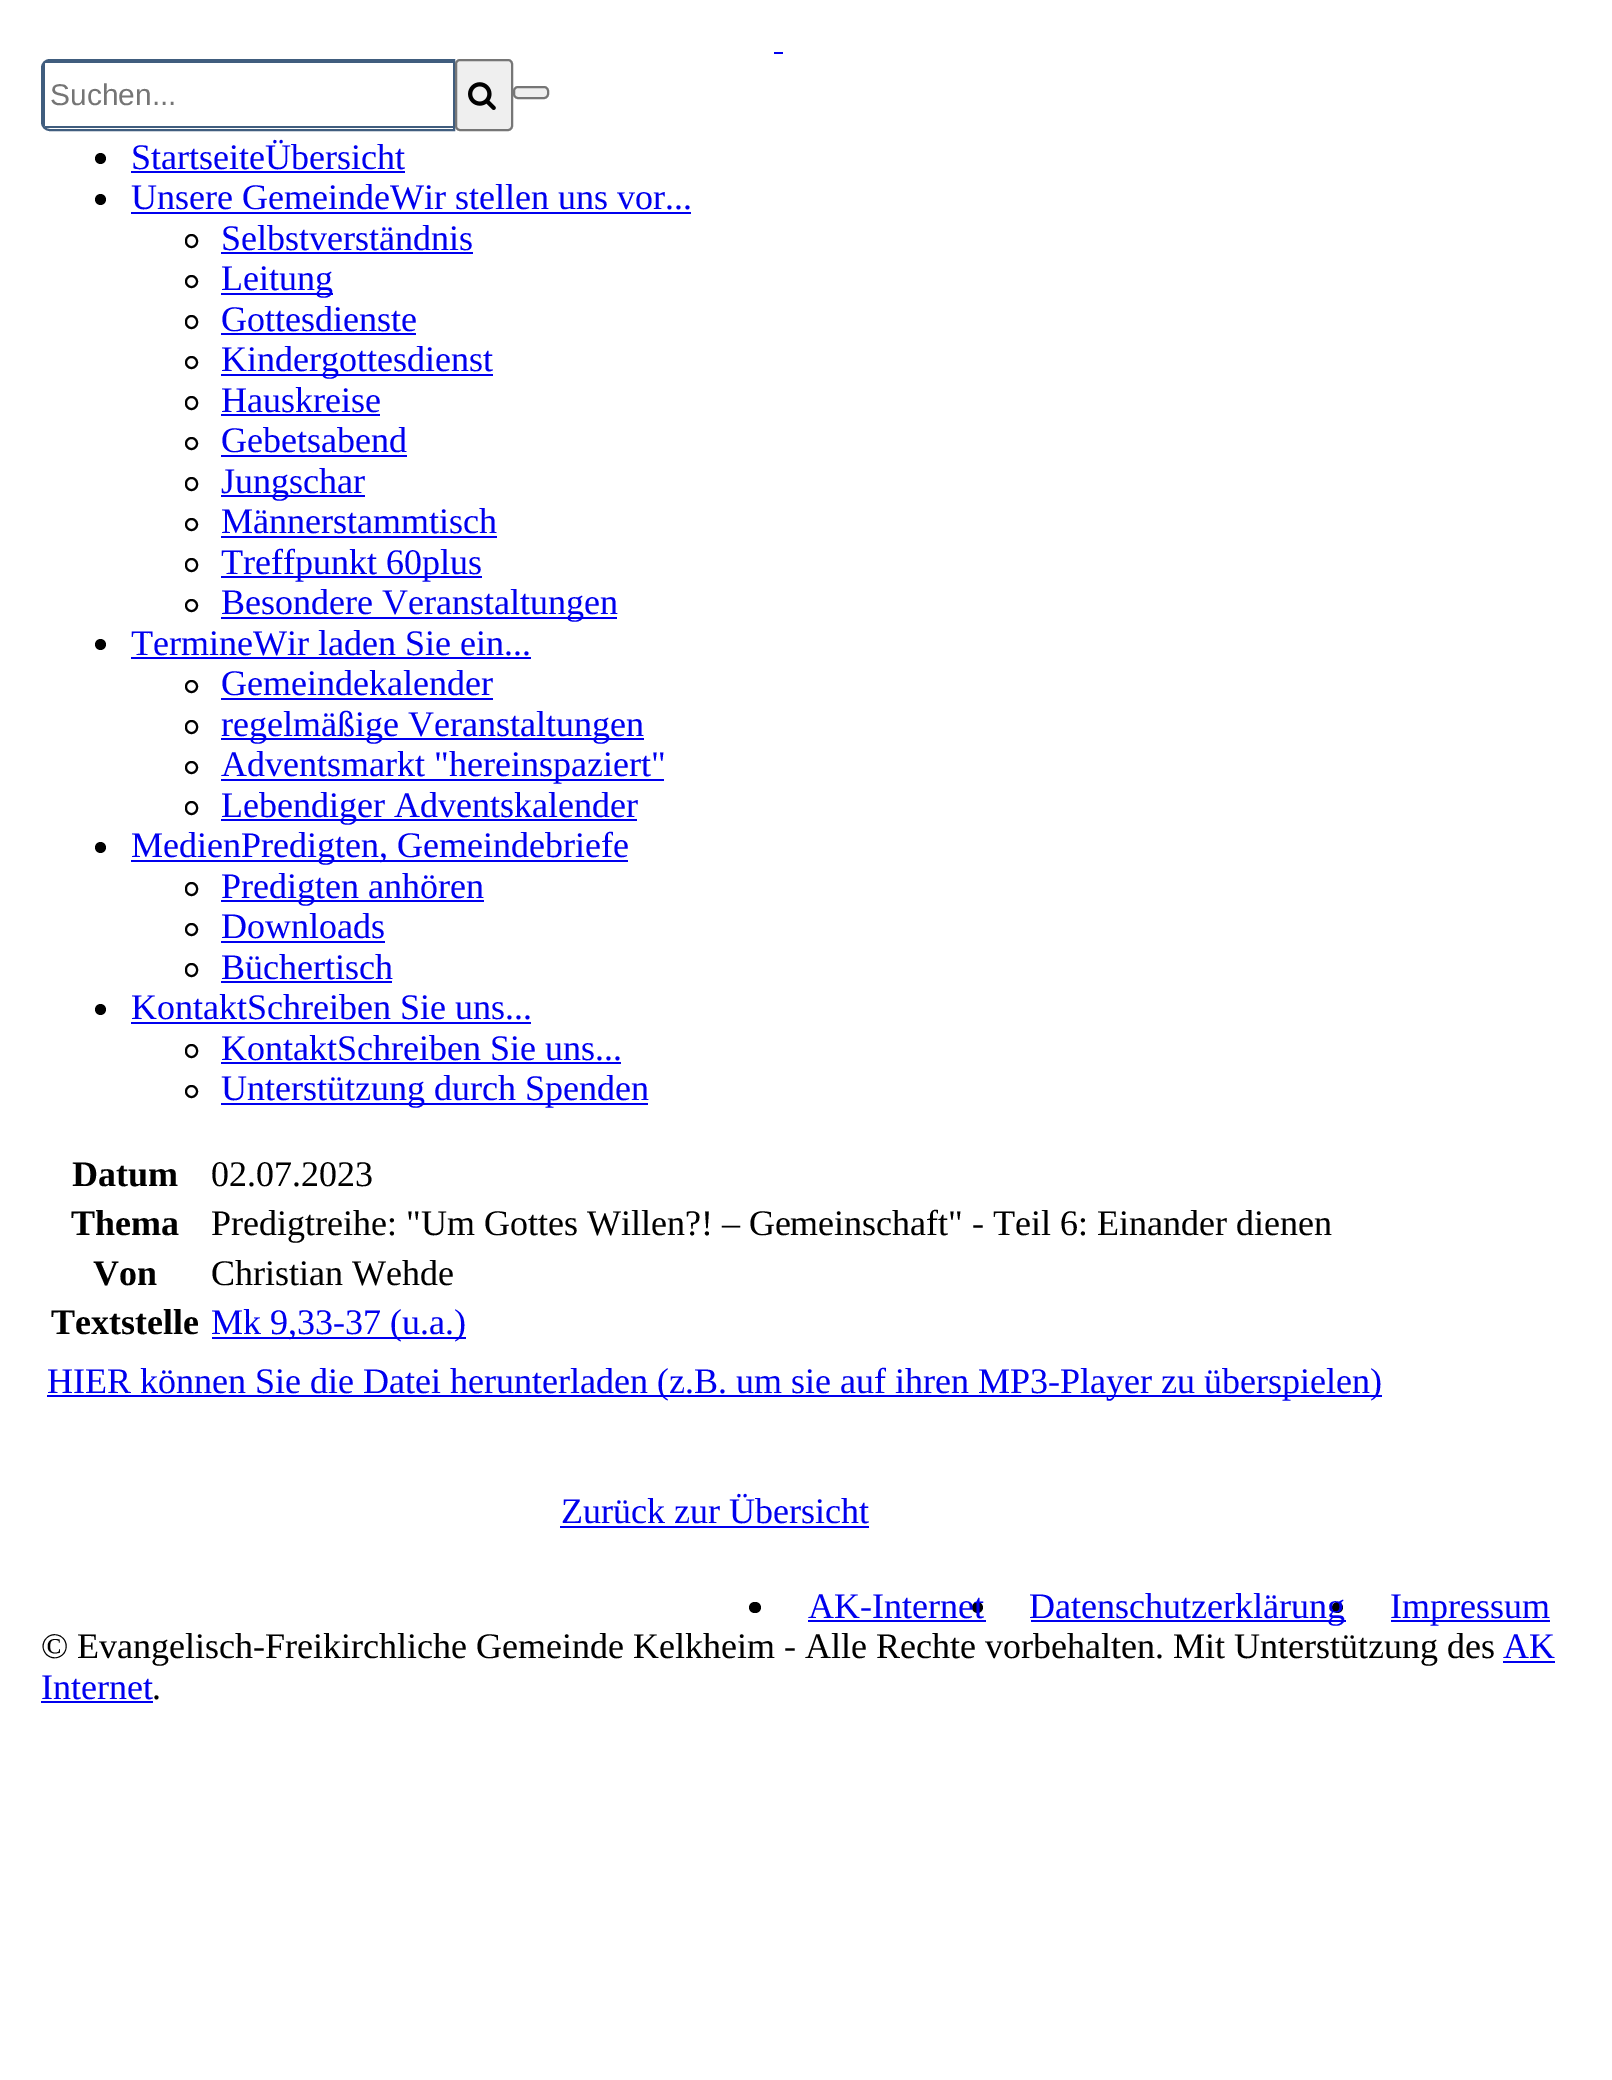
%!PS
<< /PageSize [1612 2080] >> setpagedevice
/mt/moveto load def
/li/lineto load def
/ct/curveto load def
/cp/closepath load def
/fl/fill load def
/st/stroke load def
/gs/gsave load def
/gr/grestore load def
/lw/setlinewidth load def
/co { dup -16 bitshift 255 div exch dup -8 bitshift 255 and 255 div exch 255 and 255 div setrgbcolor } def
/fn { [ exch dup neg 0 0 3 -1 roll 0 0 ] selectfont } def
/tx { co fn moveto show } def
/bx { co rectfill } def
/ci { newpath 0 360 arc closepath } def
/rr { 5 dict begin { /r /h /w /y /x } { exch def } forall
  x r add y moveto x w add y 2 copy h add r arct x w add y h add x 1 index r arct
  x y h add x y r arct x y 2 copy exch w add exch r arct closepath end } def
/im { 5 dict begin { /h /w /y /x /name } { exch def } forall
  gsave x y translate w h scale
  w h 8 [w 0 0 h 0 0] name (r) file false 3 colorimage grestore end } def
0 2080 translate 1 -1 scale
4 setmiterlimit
0 0 1612 2080 16#FFFFFF bx
774 52 9 2 16#0000EE bx
16#405D7E co
2 lw
50 60 mt 454 60 li 454 130 li 50 130 li 45.5 130 42 126.5 42 122 ct 42 68 li 42 63.5 45.5 60 50 60 ct cp st
45 61 410 2 16#405D7E bx
45 126 410 2 16#405D7E bx
43 63 2 63 16#405D7E bx
16#EFEFEF co
456 60 56 70 4 rr gs fl gr
16#767676 co
st
(media/1.raw) 468 82 28 28 im
16#EFEFEF co
514 87 34 11 4 rr gs fl gr
16#767676 co
st
16#000000 co
100.5 158.5 5.5 ci fl
131 171 274 2 16#0000EE bx
16#000000 co
100.5 199.5 5.5 ci fl
131 212 560 2 16#0000EE bx
16#000000 co
186 235 11 12 5.5 rr st
221 252 252 2 16#0000EE bx
16#000000 co
191.5 281.5 5.5 ci st
221 293 112 2 16#0000EE bx
16#000000 co
186 316 11 12 5.5 rr st
221 333 195 2 16#0000EE bx
16#000000 co
191.5 362.5 5.5 ci st
221 374 272 2 16#0000EE bx
16#000000 co
186 397 11 12 5.5 rr st
221 414 159 2 16#0000EE bx
16#000000 co
191.5 443.5 5.5 ci st
221 455 186 2 16#0000EE bx
16#000000 co
186 478 11 12 5.5 rr st
221 495 144 2 16#0000EE bx
16#000000 co
191.5 524.5 5.5 ci st
221 536 276 2 16#0000EE bx
16#000000 co
186 559 11 12 5.5 rr st
221 576 261 2 16#0000EE bx
16#000000 co
191.5 605.5 5.5 ci st
221 617 396 2 16#0000EE bx
16#000000 co
100.5 644.5 5.5 ci fl
131 657 400 2 16#0000EE bx
16#000000 co
191.5 686.5 5.5 ci st
221 698 272 2 16#0000EE bx
16#000000 co
186 721 11 12 5.5 rr st
221 738 423 2 16#0000EE bx
16#000000 co
191.5 767.5 5.5 ci st
221 779 443 2 16#0000EE bx
16#000000 co
186 802 11 12 5.5 rr st
221 819 416 2 16#0000EE bx
16#000000 co
100.5 847.5 5.5 ci fl
131 860 497 2 16#0000EE bx
16#000000 co
186 883 11 12 5.5 rr st
221 900 263 2 16#0000EE bx
16#000000 co
191.5 929.5 5.5 ci st
221 941 164 2 16#0000EE bx
16#000000 co
186 964 11 12 5.5 rr st
221 981 171 2 16#0000EE bx
16#000000 co
100.5 1009.5 5.5 ci fl
131 1022 400 2 16#0000EE bx
16#000000 co
186 1045 11 12 5.5 rr st
221 1062 400 2 16#0000EE bx
16#000000 co
191.5 1091.5 5.5 ci st
221 1103 427 2 16#0000EE bx
212 1337 254 2 16#0000EE bx
47 1395 1335 2 16#0000EE bx
560 1526 309 2 16#0000EE bx
16#000000 co
749 1602 12 11 5.5 rr fl
808 1620 178 2 16#0000EE bx
16#000000 co
977.5 1607.5 5.5 ci fl
1031 1620 315 2 16#0000EE bx
16#000000 co
1337.5 1607.5 5.5 ci fl
1391 1620 159 2 16#0000EE bx
1503 1661 52 2 16#0000EE bx
41 1701 112 2 16#0000EE bx
(Suchen...) 50 105 /LiberationSans-Regular 30 16#757575 tx
(StartseiteÜbersicht) 131 169 /LiberationSerif-Regular 36 16#0000EE tx
(Unsere GemeindeWir stellen uns vor...) 131 209 /LiberationSerif-Regular 36 16#0000EE tx
(Selbstverständnis) 221 250 /LiberationSerif-Regular 36 16#0000EE tx
(Leitung) 221 290 /LiberationSerif-Regular 36 16#0000EE tx
(Gottesdienste) 221 331 /LiberationSerif-Regular 36 16#0000EE tx
(Kindergottesdienst) 221 371 /LiberationSerif-Regular 36 16#0000EE tx
(Hauskreise) 221 412 /LiberationSerif-Regular 36 16#0000EE tx
(Gebetsabend) 221 452 /LiberationSerif-Regular 36 16#0000EE tx
(Jungschar) 221 493 /LiberationSerif-Regular 36 16#0000EE tx
(Männerstammtisch) 221 533 /LiberationSerif-Regular 36 16#0000EE tx
(Treffpunkt 60plus) 221 574 /LiberationSerif-Regular 36 16#0000EE tx
(Besondere Veranstaltungen) 221 614 /LiberationSerif-Regular 36 16#0000EE tx
(TermineWir laden Sie ein...) 131 655 /LiberationSerif-Regular 36 16#0000EE tx
(Gemeindekalender) 221 695 /LiberationSerif-Regular 36 16#0000EE tx
(regelmäßige Veranstaltungen) 221 736 /LiberationSerif-Regular 36 16#0000EE tx
(Adventsmarkt "hereinspaziert") 221 776 /LiberationSerif-Regular 36 16#0000EE tx
(Lebendiger Adventskalender) 221 817 /LiberationSerif-Regular 36 16#0000EE tx
(MedienPredigten, Gemeindebriefe) 131 857 /LiberationSerif-Regular 36 16#0000EE tx
(Predigten anhören) 221 898 /LiberationSerif-Regular 36 16#0000EE tx
(Downloads) 221 938 /LiberationSerif-Regular 36 16#0000EE tx
(Büchertisch) 221 979 /LiberationSerif-Regular 36 16#0000EE tx
(KontaktSchreiben Sie uns...) 131 1019 /LiberationSerif-Regular 36 16#0000EE tx
(KontaktSchreiben Sie uns...) 221 1060 /LiberationSerif-Regular 36 16#0000EE tx
(Unterstützung durch Spenden) 221 1100 /LiberationSerif-Regular 36 16#0000EE tx
(Datum) 72 1186 /LiberationSerif-Bold 36 16#000000 tx
(02.07.2023) 211 1186 /LiberationSerif-Regular 36 16#000000 tx
(Thema) 71 1235 /LiberationSerif-Bold 36 16#000000 tx
(Predigtreihe: "Um Gottes Willen?! – Gemeinschaft" - Teil 6: Einander dienen) 211 1235 /LiberationSerif-Regular 36 16#000000 tx
(Von) 93 1285 /LiberationSerif-Bold 36 16#000000 tx
(Christian Wehde) 211 1285 /LiberationSerif-Regular 36 16#000000 tx
(Textstelle) 51 1334 /LiberationSerif-Bold 36 16#000000 tx
(Mk 9,33-37 \(u.a.\)) 211 1334 /LiberationSerif-Regular 36 16#0000EE tx
(HIER können Sie die Datei herunterladen \(z.B. um sie auf ihren MP3-Player zu überspielen\)) 47 1393 /LiberationSerif-Regular 36 16#0000EE tx
(Zurück zur Übersicht) 561 1523 /LiberationSerif-Regular 36 16#0000EE tx
(AK-Internet) 808 1618 /LiberationSerif-Regular 36 16#0000EE tx
(Datenschutzerklärung) 1029 1618 /LiberationSerif-Regular 36 16#0000EE tx
(Impressum) 1390 1618 /LiberationSerif-Regular 36 16#0000EE tx
(© Evangelisch-Freikirchliche Gemeinde Kelkheim - Alle Rechte vorbehalten. Mit Unterstützung des) 41 1658 /LiberationSerif-Regular 36 16#000000 tx
(AK) 1503 1658 /LiberationSerif-Regular 36 16#0000EE tx
(Internet) 41 1699 /LiberationSerif-Regular 36 16#0000EE tx
(.) 152 1699 /LiberationSerif-Regular 36 16#000000 tx
showpage
